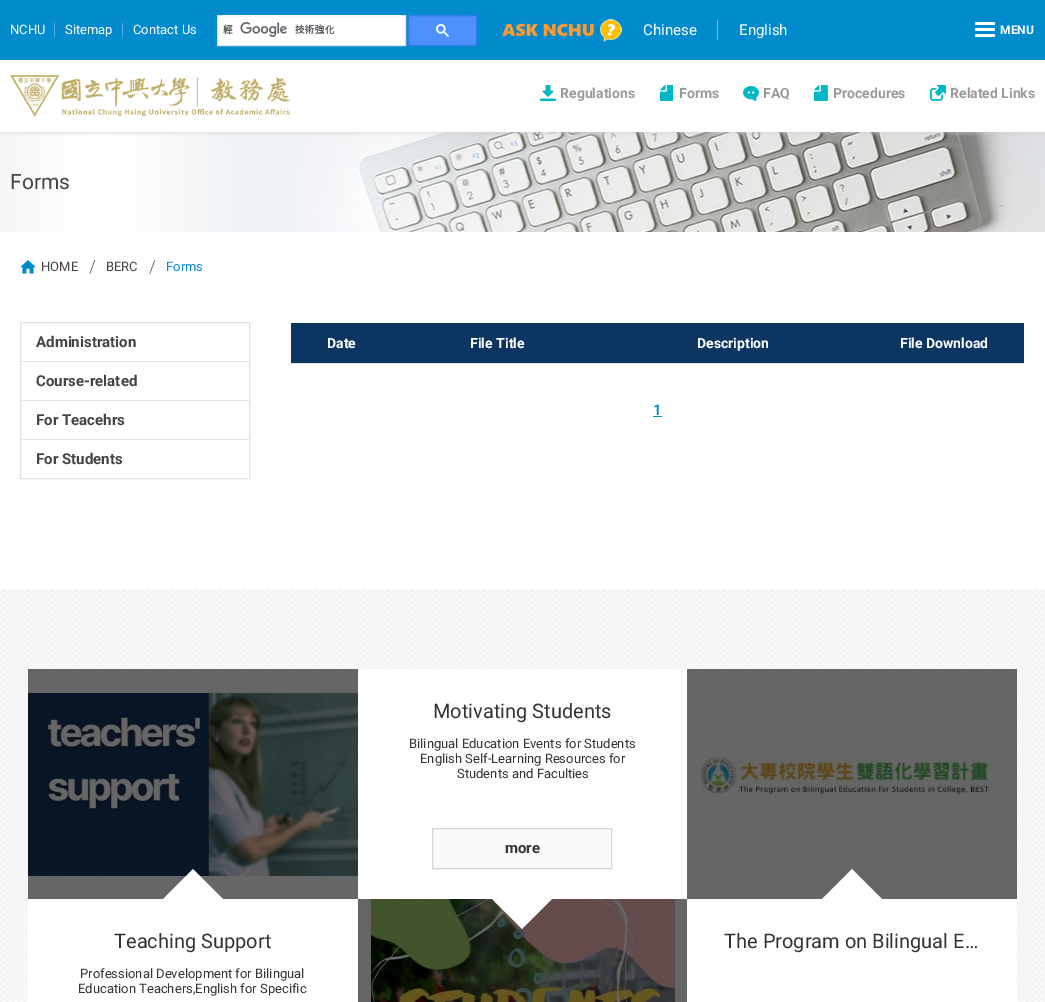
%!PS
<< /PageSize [1045 1002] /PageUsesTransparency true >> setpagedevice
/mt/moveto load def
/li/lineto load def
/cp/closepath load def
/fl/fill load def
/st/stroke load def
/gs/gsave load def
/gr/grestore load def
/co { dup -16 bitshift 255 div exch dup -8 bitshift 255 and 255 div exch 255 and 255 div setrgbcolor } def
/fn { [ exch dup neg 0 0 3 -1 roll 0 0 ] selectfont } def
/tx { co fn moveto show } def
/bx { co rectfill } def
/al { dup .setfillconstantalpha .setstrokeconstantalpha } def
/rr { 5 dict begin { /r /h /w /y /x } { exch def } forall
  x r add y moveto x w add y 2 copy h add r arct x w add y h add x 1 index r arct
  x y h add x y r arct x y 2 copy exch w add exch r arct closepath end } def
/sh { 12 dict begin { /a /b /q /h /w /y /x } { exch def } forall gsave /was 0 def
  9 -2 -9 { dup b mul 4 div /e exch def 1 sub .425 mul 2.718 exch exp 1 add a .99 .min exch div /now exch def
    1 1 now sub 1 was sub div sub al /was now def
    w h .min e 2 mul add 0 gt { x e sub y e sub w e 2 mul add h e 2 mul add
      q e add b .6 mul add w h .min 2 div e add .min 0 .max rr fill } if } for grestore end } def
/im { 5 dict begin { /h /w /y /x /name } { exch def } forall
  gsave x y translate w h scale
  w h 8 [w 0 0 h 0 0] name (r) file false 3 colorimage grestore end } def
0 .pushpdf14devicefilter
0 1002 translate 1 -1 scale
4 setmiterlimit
0 0 1045 1002 16#FFFFFF bx
(media/10.raw) 0 132 1045 100 im
gs
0 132 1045 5 rectclip
16#CCCCCC co
0 0 1045 132 0 2.5 1 sh
gr
0 0 1045 60 16#018BCD bx
54 23 1 14 16#52B0DD bx
122 23 1 14 16#52B0DD bx
16#FFFFFF co
217.5 15.5 mt 405.5 15.5 li 405.5 45.5 li 217.5 45.5 li cp gs fl gr
16#DFE1E5 co
st
223 15 178 1 16#FFFFFF bx
(media/1.raw) 223 22 112 15 im
16#4D90FE co
408.5 15.5 68 30 1.5 rr gs fl gr
16#3079ED co
st
(media/2.raw) 436 24 13 13 im
(media/3.raw) 502 19 120 23 im
717 20 1 20 16#6EBDE3 bx
16#FFFFFF co
975 22 20 3 1.5 rr fl
975 28 20 3 1.5 rr fl
975 34 20 3 1.5 rr fl
(media/4.raw) 10 75 280 42 im
(media/5.raw) 540 85 16 16 im
(media/6.raw) 660 85 13 16 im
(media/7.raw) 743 86 16 15 im
(media/8.raw) 814 85 14 16 im
(media/9.raw) 930 85 16 16 im
(media/11.raw) 20 260 16 14 im
(media/12.raw) 89 260 6 14 im
(media/12.raw) 149 260 6 14 im
16#E1E1E1 co
20.5 322.5 229 156 rectstroke
21 361 228 1 16#E1E1E1 bx
21 400 228 1 16#E1E1E1 bx
21 439 228 1 16#E1E1E1 bx
291 363 733 1 16#E6E6E6 bx
291 323 733 40 16#0C3661 bx
653 416 9 1 16#018BCD bx
(media/13.raw) 0 589 1045 413 im
28 669 989 333 16#FFFFFF bx
16#FAFAFA co
432.5 828.5 mt 611.5 828.5 li 611.5 868.5 li 432.5 868.5 li cp gs fl gr
16#D5D5D5 co
st
(media/14.raw) 369 899 307 103 im
0.6 al
358 899 329 103 16#000000 bx
1 al
16#FFFFFF co
492 899 mt 552 899 li 522 929 li cp fl
(media/15.raw) 28 692 330 185 im
0.6 al
28 669 330 230 16#000000 bx
1 al
16#FFFFFF co
223 899 mt 163 899 li 193 869 li cp fl
(media/16.raw) 700 749 298 50 im
0.6 al
687 669 330 230 16#000000 bx
1 al
16#FFFFFF co
882 899 mt 822 899 li 852 869 li cp fl
(NCHU) 10 34 /Roboto-Regular 13 16#FFFFFF tx
(Sitemap) 65 34 /Roboto-Regular 13 16#FFFFFF tx
(Contact Us) 133 34 /Roboto-Regular 13 16#FFFFFF tx
(Chinese) 643 35 /Roboto-Regular 15 16#FFFFFF tx
(English) 739 35 /Roboto-Regular 15 16#FFFFFF tx
(MENU) 1000 34 /Roboto-Bold 12 16#FFFFFF tx
(Regulations) 560 98 /Roboto-Bold 14 16#999999 tx
(Forms) 679 98 /Roboto-Bold 14 16#999999 tx
(FAQ) 763 98 /Roboto-Bold 14 16#999999 tx
(Procedures) 833 98 /Roboto-Bold 14 16#999999 tx
(Related Links) 950 98 /Roboto-Bold 14 16#999999 tx
(Forms) 10 189 /Roboto-Regular 21 16#444444 tx
(HOME) 41 271 /Roboto-Regular 13 16#444444 tx
(BERC) 106 271 /Roboto-Regular 13 16#444444 tx
(Forms) 166 271 /Roboto-Regular 13 16#018BCD tx
(Administration) 36 347 /Roboto-Bold 15 16#444444 tx
(Course-related) 36 386 /Roboto-Bold 15 16#444444 tx
(For Teacehrs) 36 425 /Roboto-Bold 15 16#444444 tx
(For Students) 36 464 /Roboto-Bold 15 16#444444 tx
(Date) 327 348 /Roboto-Bold 14 16#FFFFFF tx
(File Title) 470 348 /Roboto-Bold 14 16#FFFFFF tx
(Description) 697 348 /Roboto-Bold 14 16#FFFFFF tx
(File Download) 900 348 /Roboto-Bold 14 16#FFFFFF tx
(1) 653 415 /Roboto-Bold 15 16#018BCD tx
(Motivating Students) 433 718 /Roboto-Regular 20 16#333333 tx
(Bilingual Education Events for Students) 409 748 /Roboto-Regular 13 16#333333 tx
(English Self-Learning Resources for) 420 763 /Roboto-Regular 13 16#333333 tx
(Students and Faculties) 457 778 /Roboto-Regular 13 16#333333 tx
(more) 505 853 /Roboto-Bold 15 16#333333 tx
(Teaching Support) 114 948 /Roboto-Regular 20 16#333333 tx
(Professional Development for Bilingual) 80 978 /Roboto-Regular 13 16#333333 tx
(Education Teachers,English for Specific) 78 993 /Roboto-Regular 13 16#333333 tx
(The Program on Bilingual E…) 724 948 /Roboto-Regular 20 16#333333 tx
.poppdf14devicefilter showpage
